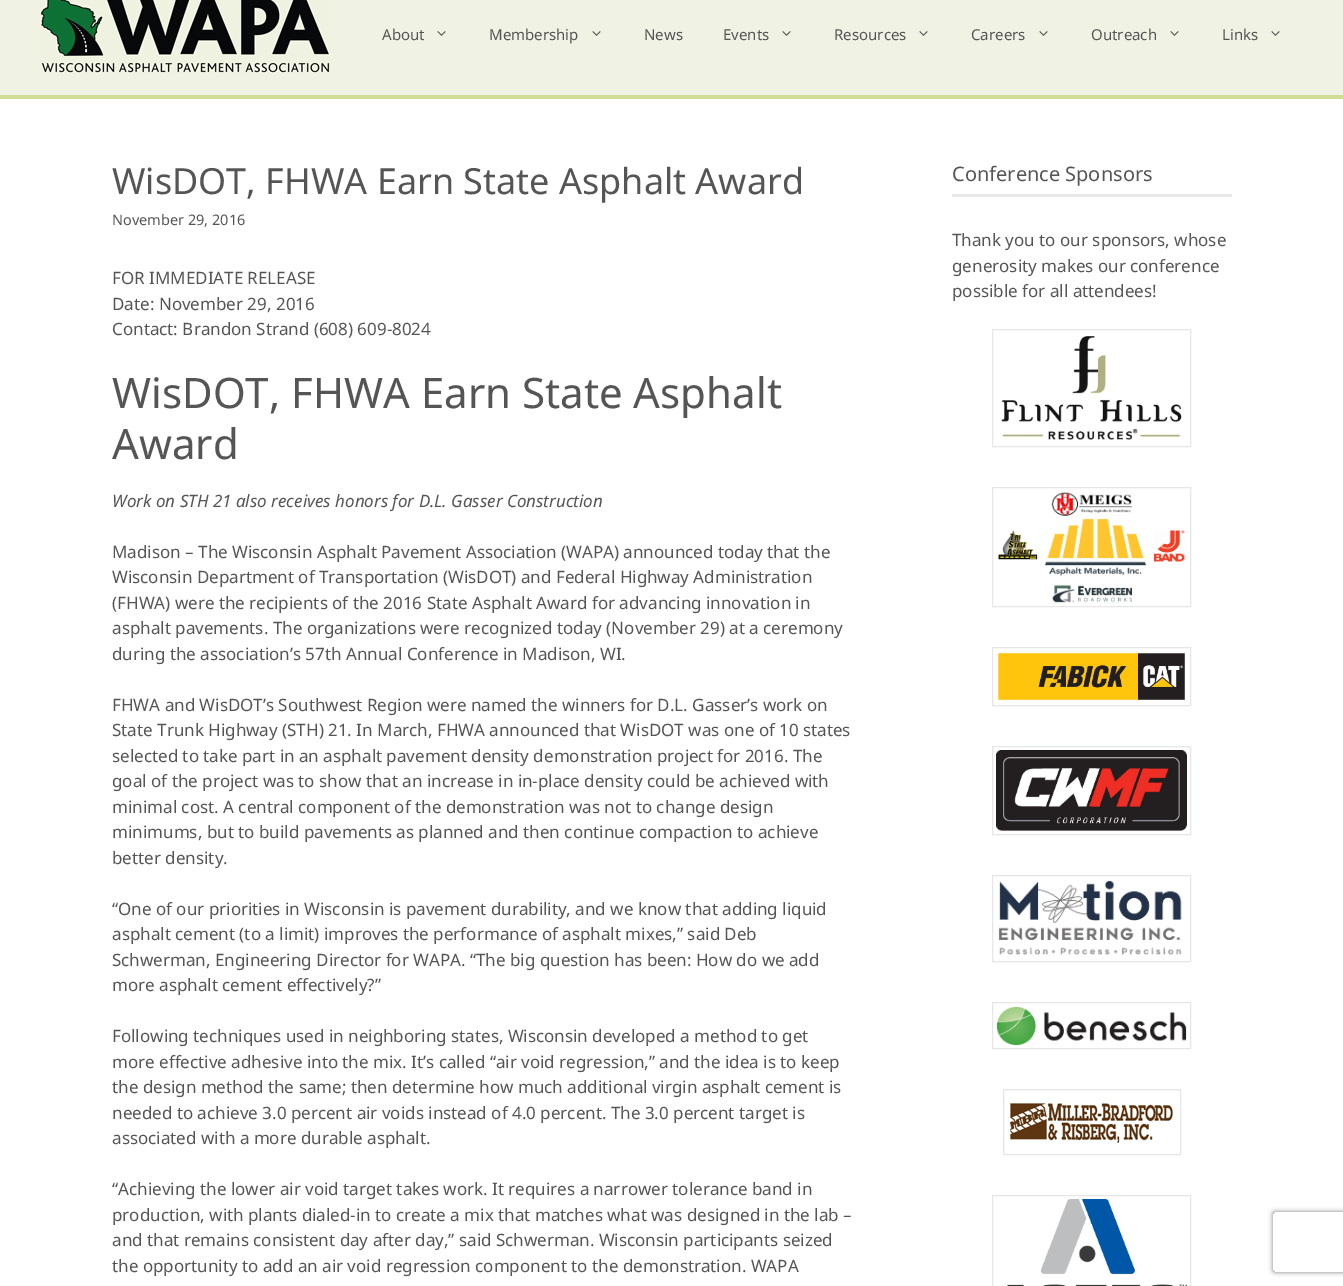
%!PS
<< /PageSize [1343 1286] /PageUsesTransparency true >> setpagedevice
/mt/moveto load def
/li/lineto load def
/ct/curveto load def
/cp/closepath load def
/gs/gsave load def
/gr/grestore load def
/co { dup -16 bitshift 255 div exch dup -8 bitshift 255 and 255 div exch 255 and 255 div setrgbcolor } def
/fn { [ exch dup neg 0 0 3 -1 roll 0 0 ] selectfont } def
/tx { co fn moveto show } def
/bx { co rectfill } def
/al { dup .setfillconstantalpha .setstrokeconstantalpha } def
/rr { 5 dict begin { /r /h /w /y /x } { exch def } forall
  x r add y moveto x w add y 2 copy h add r arct x w add y h add x 1 index r arct
  x y h add x y r arct x y 2 copy exch w add exch r arct closepath end } def
/sh { 12 dict begin { /a /b /q /h /w /y /x } { exch def } forall gsave /was 0 def
  9 -2 -9 { dup b mul 4 div /e exch def 1 sub .425 mul 2.718 exch exp 1 add a .99 .min exch div /now exch def
    1 1 now sub 1 was sub div sub al /was now def
    w h .min e 2 mul add 0 gt { x e sub y e sub w e 2 mul add h e 2 mul add
      q e add b .6 mul add w h .min 2 div e add .min 0 .max rr fill } if } for grestore end } def
/im { 5 dict begin { /h /w /y /x /name } { exch def } forall
  gsave x y translate w h scale
  w h 8 [w 0 0 h 0 0] name (r) file false 3 colorimage grestore end } def
0 .pushpdf14devicefilter
0 1286 translate 1 -1 scale
4 setmiterlimit
0 0 1343 1286 16#FFFFFF bx
0 0 1343 95 16#F0F2E3 bx
0 95 1343 4 16#D2DC95 bx
(media/1.raw) 40 0 290 74 im
(media/2.raw) 437 31 9 5 im
(media/2.raw) 592 31 9 5 im
(media/2.raw) 782 31 9 5 im
(media/2.raw) 919 31 9 5 im
(media/2.raw) 1039 31 9 5 im
(media/2.raw) 1170 31 9 5 im
(media/2.raw) 1271 31 9 5 im
952 194 280 3 16#E8E8E8 bx
16#E6E6E6 co
992.5 329.5 198 117 rectstroke
(media/3.raw) 1001 336 181 104 im
992.5 487.5 198 119 rectstroke
(media/4.raw) 997 492 189 111 im
992.5 647.5 198 58 rectstroke
(media/5.raw) 998 653 187 47 im
992.5 746.5 198 88 rectstroke
(media/6.raw) 996 750 191 81 im
992.5 875.5 198 86 rectstroke
(media/7.raw) 998 880 184 76 im
992.5 1002.5 198 46 rectstroke
(media/8.raw) 996 1007 191 38 im
1003.5 1089.5 177 65 rectstroke
(media/9.raw) 1007 1101 166 47 im
992.5 1195.5 198 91 rectstroke
(media/10.raw) 1007 1199 180 87 im
gs
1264 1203 mt 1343 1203 li 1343 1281 li 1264 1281 li cp 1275 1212 mt 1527 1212 li 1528 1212 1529 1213 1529 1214 ct 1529 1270 li 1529 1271 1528 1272 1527 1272 ct 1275 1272 li 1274 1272 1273 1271 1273 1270 ct 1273 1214 li 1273 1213 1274 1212 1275 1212 ct cp eoclip newpath
16#808080 co
1273 1212 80 60 2 2.5 1 sh
gr
(About) 382 40 /NotoSans-Regular 15 16#555555 tx
(Membership) 489 40 /NotoSans-Regular 15 16#555555 tx
(News) 644 40 /NotoSans-Regular 15 16#555555 tx
(Events) 723 40 /NotoSans-Regular 15 16#555555 tx
(Resources) 834 40 /NotoSans-Regular 15 16#555555 tx
(Careers) 971 40 /NotoSans-Regular 15 16#555555 tx
(Outreach) 1091 40 /NotoSans-Regular 15 16#555555 tx
(Links) 1222 40 /NotoSans-Regular 15 16#555555 tx
(WisDOT, FHWA Earn State Asphalt Award) 112 194 /NotoSans-Regular 36 16#555555 tx
(November 29, 2016) 112 225 /NotoSans-Regular 14.5 16#555555 tx
(FOR IMMEDIATE RELEASE) 112 284 /NotoSans-Regular 17 16#555555 tx
(Date: November 29, 2016) 112 310 /NotoSans-Regular 17 16#555555 tx
(Contact: Brandon Strand \(608\) 609-8024) 112 335 /NotoSans-Regular 17 16#555555 tx
(WisDOT, FHWA Earn State Asphalt) 112 408 /NotoSans-Regular 42 16#555555 tx
(Award) 112 459 /NotoSans-Regular 42 16#555555 tx
(Work on STH 21 also receives honors for D.L. Gasser Construction) 112 507 /NotoSans-Italic 17 16#555555 tx
(Madison – The Wisconsin Asphalt Pavement Association \(WAPA\) announced today that the) 112 558 /NotoSans-Regular 17 16#555555 tx
(Wisconsin Department of Transportation \(WisDOT\) and Federal Highway Administration) 112 583 /NotoSans-Regular 17 16#555555 tx
(\(FHWA\) were the recipients of the 2016 State Asphalt Award for advancing innovation in) 112 609 /NotoSans-Regular 17 16#555555 tx
(asphalt pavements. The organizations were recognized today \(November 29\) at a ceremony) 112 634 /NotoSans-Regular 17 16#555555 tx
(during the association’s 57th Annual Conference in Madison, WI.) 112 660 /NotoSans-Regular 17 16#555555 tx
(FHWA and WisDOT’s Southwest Region were named the winners for D.L. Gasser’s work on) 112 711 /NotoSans-Regular 17 16#555555 tx
(State Trunk Highway \(STH\) 21. In March, FHWA announced that WisDOT was one of 10 states) 112 736 /NotoSans-Regular 17 16#555555 tx
(selected to take part in an asphalt pavement density demonstration project for 2016. The) 112 762 /NotoSans-Regular 17 16#555555 tx
(goal of the project was to show that an increase in in-place density could be achieved with) 112 787 /NotoSans-Regular 17 16#555555 tx
(minimal cost. A central component of the demonstration was not to change design) 112 813 /NotoSans-Regular 17 16#555555 tx
(minimums, but to build pavements as planned and then continue compaction to achieve) 112 838 /NotoSans-Regular 17 16#555555 tx
(better density.) 112 864 /NotoSans-Regular 17 16#555555 tx
(“One of our priorities in Wisconsin is pavement durability, and we know that adding liquid) 112 915 /NotoSans-Regular 17 16#555555 tx
(asphalt cement \(to a limit\) improves the performance of asphalt mixes,” said Deb) 112 940 /NotoSans-Regular 17 16#555555 tx
(Schwerman, Engineering Director for WAPA. “The big question has been: How do we add) 112 966 /NotoSans-Regular 17 16#555555 tx
(more asphalt cement effectively?”) 112 991 /NotoSans-Regular 17 16#555555 tx
(Following techniques used in neighboring states, Wisconsin developed a method to get) 112 1042 /NotoSans-Regular 17 16#555555 tx
(more effective adhesive into the mix. It’s called “air void regression,” and the idea is to keep) 112 1068 /NotoSans-Regular 17 16#555555 tx
(the design method the same; then determine how much additional virgin asphalt cement is) 112 1093 /NotoSans-Regular 17 16#555555 tx
(needed to achieve 3.0 percent air voids instead of 4.0 percent. The 3.0 percent target is) 112 1119 /NotoSans-Regular 17 16#555555 tx
(associated with a more durable asphalt.) 112 1144 /NotoSans-Regular 17 16#555555 tx
(“Achieving the lower air void target takes work. It requires a narrower tolerance band in) 112 1195 /NotoSans-Regular 17 16#555555 tx
(production, with plants dialed-in to create a mix that matches what was designed in the lab –) 112 1221 /NotoSans-Regular 17 16#555555 tx
(and that remains consistent day after day,” said Schwerman. Wisconsin participants seized) 112 1246 /NotoSans-Regular 17 16#555555 tx
(the opportunity to add an air void regression component to the demonstration. WAPA) 112 1272 /NotoSans-Regular 17 16#555555 tx
(Conference Sponsors) 952 181 /NotoSans-Regular 20 16#555555 tx
(Thank you to our sponsors, whose) 952 246 /NotoSans-Regular 17 16#555555 tx
(generosity makes our conference) 952 272 /NotoSans-Regular 17 16#555555 tx
(possible for all attendees!) 952 297 /NotoSans-Regular 17 16#555555 tx
.poppdf14devicefilter showpage
